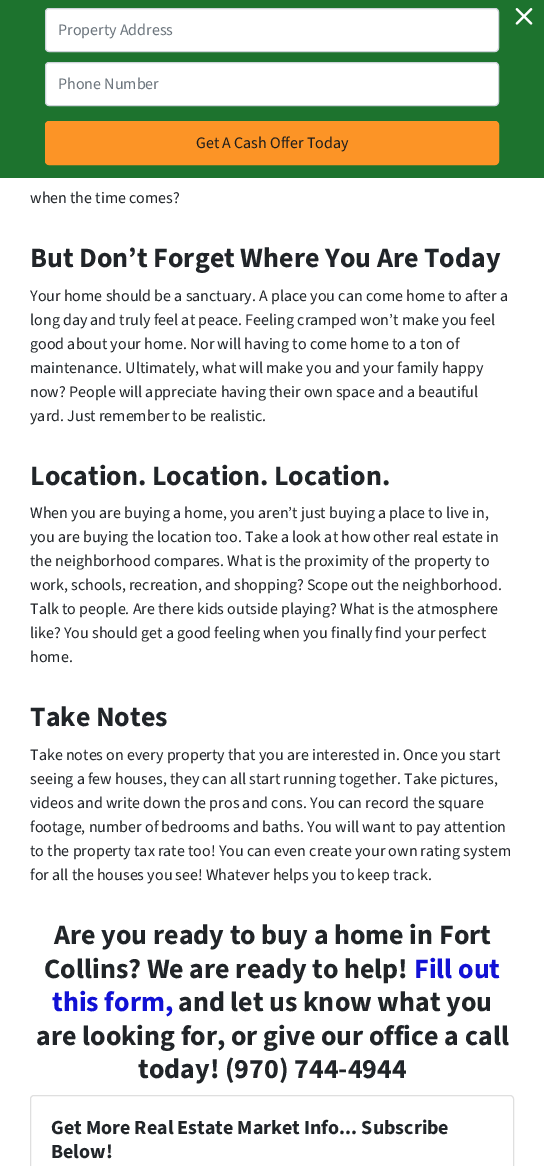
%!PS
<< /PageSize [544 1166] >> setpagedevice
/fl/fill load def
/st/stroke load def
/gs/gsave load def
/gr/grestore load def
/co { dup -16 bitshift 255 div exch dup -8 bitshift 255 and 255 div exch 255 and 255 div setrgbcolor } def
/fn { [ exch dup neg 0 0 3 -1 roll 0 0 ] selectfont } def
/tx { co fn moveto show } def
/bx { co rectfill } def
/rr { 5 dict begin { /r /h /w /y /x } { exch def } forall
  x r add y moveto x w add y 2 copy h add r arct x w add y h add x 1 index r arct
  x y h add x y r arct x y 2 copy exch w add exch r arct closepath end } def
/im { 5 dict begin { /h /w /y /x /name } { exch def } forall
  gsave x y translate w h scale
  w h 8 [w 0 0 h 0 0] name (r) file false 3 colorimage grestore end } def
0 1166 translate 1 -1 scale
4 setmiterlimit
0 0 544 1166 16#FFFFFF bx
0 0 544 178 16#1D732E bx
(media/1.raw) 515 8 18 17 im
16#FFFFFF co
45.5 8.5 453 43 3.5 rr gs fl gr
16#CED4DA co
st
16#FFFFFF co
45.5 62.5 453 43 3.5 rr gs fl gr
16#CED4DA co
st
16#FC9426 co
45.5 121.5 453 43 3.5 rr gs fl gr
st
16#DFDFDF co
30.5 1095.5 483 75 3.5 rr st
(Property Address) 58 35 /SourceSans3-Regular 16 16#6C757D tx
(Phone Number) 58 89 /SourceSans3-Regular 16 16#6C757D tx
(Get A Cash Offer Today) 196 148 /SourceSans3-Regular 16 16#1D1D1D tx
(when the time comes?) 30 203 /SourceSans3-Regular 16 16#212529 tx
(But Don’t Forget Where You Are Today) 30 267 /SourceSans3-Bold 28 16#212529 tx
(Your home should be a sanctuary. A place you can come home to after a) 30 301 /SourceSans3-Regular 16 16#212529 tx
(long day and truly feel at peace. Feeling cramped won’t make you feel) 30 325 /SourceSans3-Regular 16 16#212529 tx
(good about your home. Nor will having to come home to a ton of) 30 349 /SourceSans3-Regular 16 16#212529 tx
(maintenance. Ultimately, what will make you and your family happy) 30 373 /SourceSans3-Regular 16 16#212529 tx
(now? People will appreciate having their own space and a beautiful) 30 397 /SourceSans3-Regular 16 16#212529 tx
(yard. Just remember to be realistic.) 30 421 /SourceSans3-Regular 16 16#212529 tx
(Location. Location. Location.) 30 485 /SourceSans3-Bold 28 16#212529 tx
(When you are buying a home, you aren’t just buying a place to live in,) 30 518 /SourceSans3-Regular 16 16#212529 tx
(you are buying the location too. Take a look at how other real estate in) 30 542 /SourceSans3-Regular 16 16#212529 tx
(the neighborhood compares. What is the proximity of the property to) 30 566 /SourceSans3-Regular 16 16#212529 tx
(work, schools, recreation, and shopping? Scope out the neighborhood.) 30 590 /SourceSans3-Regular 16 16#212529 tx
(Talk to people. Are there kids outside playing? What is the atmosphere) 30 614 /SourceSans3-Regular 16 16#212529 tx
(like? You should get a good feeling when you finally find your perfect) 30 638 /SourceSans3-Regular 16 16#212529 tx
(home.) 30 662 /SourceSans3-Regular 16 16#212529 tx
(Take Notes) 30 726 /SourceSans3-Bold 28 16#212529 tx
(Take notes on every property that you are interested in. Once you start) 30 760 /SourceSans3-Regular 16 16#212529 tx
(seeing a few houses, they can all start running together. Take pictures,) 30 784 /SourceSans3-Regular 16 16#212529 tx
(videos and write down the pros and cons. You can record the square) 30 808 /SourceSans3-Regular 16 16#212529 tx
(footage, number of bedrooms and baths. You will want to pay attention) 30 832 /SourceSans3-Regular 16 16#212529 tx
(to the property tax rate too! You can even create your own rating system) 30 856 /SourceSans3-Regular 16 16#212529 tx
(for all the houses you see! Whatever helps you to keep track.) 30 880 /SourceSans3-Regular 16 16#212529 tx
(Are you ready to buy a home in Fort) 54 944 /SourceSans3-Bold 28 16#212529 tx
(Collins? We are ready to help!) 44 978 /SourceSans3-Bold 28 16#212529 tx
(Fill out) 414 978 /SourceSans3-Bold 28 16#1111D5 tx
(this form,) 52 1011 /SourceSans3-Bold 28 16#1111D5 tx
(and let us know what you) 178 1011 /SourceSans3-Bold 28 16#212529 tx
(are looking for, or give our office a call) 36 1045 /SourceSans3-Bold 28 16#212529 tx
(today! \(970\) 744-4944) 138 1078 /SourceSans3-Bold 28 16#212529 tx
(Get More Real Estate Market Info... Subscribe) 51 1134 /SourceSans3-Bold 20 16#212529 tx
(Below!) 51 1158 /SourceSans3-Bold 20 16#212529 tx
showpage
